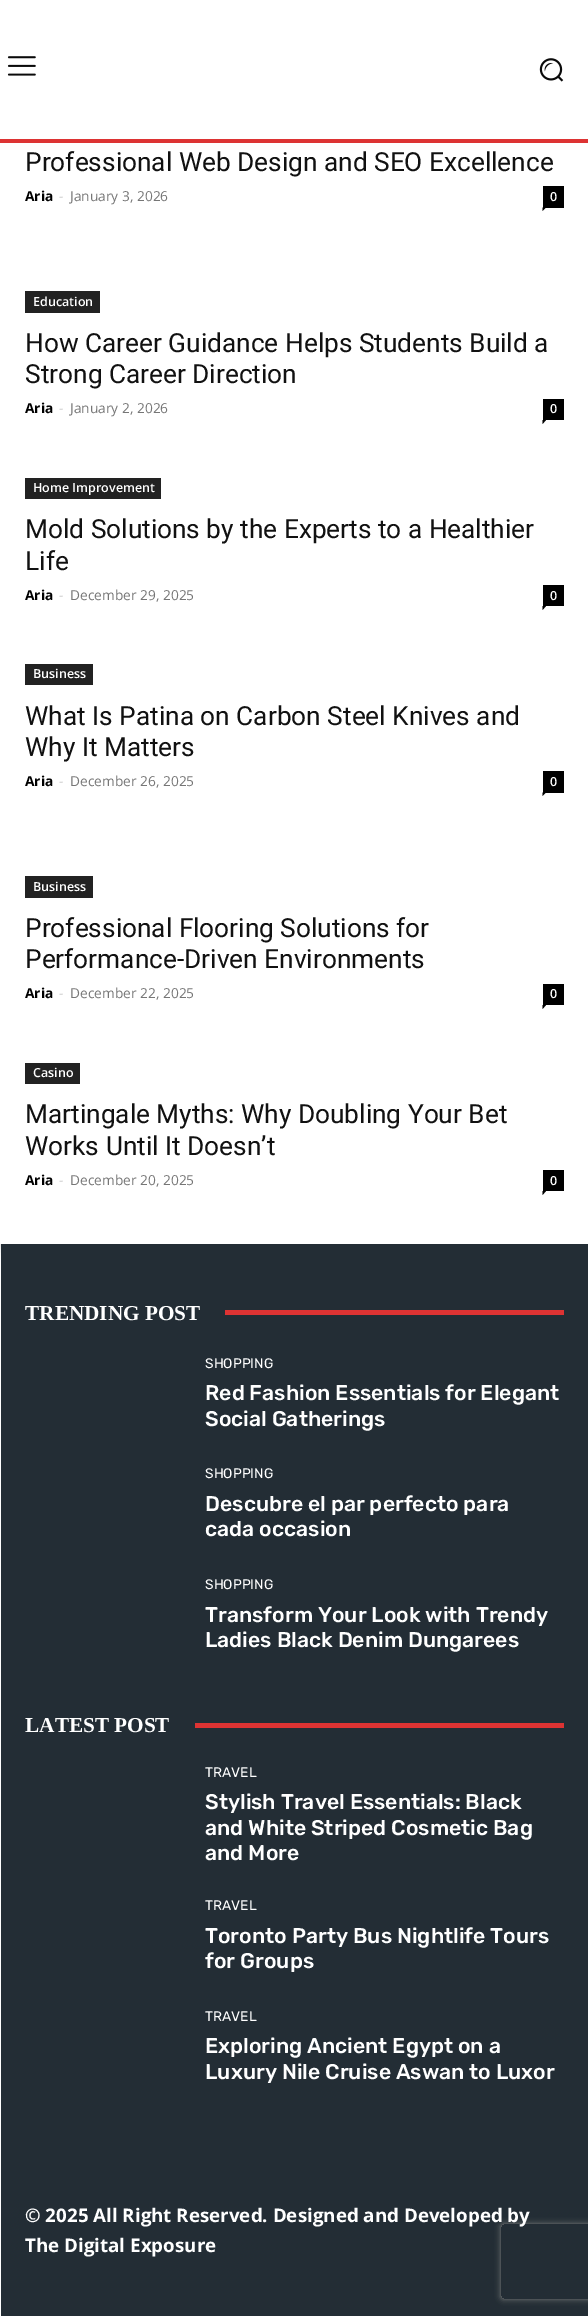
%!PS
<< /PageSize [588 2316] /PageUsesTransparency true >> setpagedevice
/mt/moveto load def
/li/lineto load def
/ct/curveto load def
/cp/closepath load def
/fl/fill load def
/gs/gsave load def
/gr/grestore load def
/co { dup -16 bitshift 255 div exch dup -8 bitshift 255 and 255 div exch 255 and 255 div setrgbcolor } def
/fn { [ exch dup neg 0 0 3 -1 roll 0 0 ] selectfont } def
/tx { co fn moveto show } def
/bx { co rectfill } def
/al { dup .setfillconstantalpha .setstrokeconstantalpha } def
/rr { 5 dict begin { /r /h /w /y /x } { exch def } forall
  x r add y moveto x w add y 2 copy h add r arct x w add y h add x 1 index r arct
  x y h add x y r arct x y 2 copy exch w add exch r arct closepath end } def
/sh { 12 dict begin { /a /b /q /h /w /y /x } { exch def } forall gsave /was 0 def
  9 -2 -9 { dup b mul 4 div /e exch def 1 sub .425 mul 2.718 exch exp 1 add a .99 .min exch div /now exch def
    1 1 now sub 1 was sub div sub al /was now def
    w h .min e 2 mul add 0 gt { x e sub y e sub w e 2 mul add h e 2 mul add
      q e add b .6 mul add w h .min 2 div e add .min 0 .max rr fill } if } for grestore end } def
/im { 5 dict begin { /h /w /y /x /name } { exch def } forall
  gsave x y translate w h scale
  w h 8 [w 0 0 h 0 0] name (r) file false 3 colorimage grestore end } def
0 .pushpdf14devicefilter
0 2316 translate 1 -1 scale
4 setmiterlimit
0 0 588 2316 16#FFFFFF bx
16#000000 co
-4 -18 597 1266 0 6 .12 sh
0 0 588 1244 16#FFFFFF bx
(media/1.raw) 7 56 29 20 im
(media/2.raw) 539 58 25 24 im
0 139 588 4 16#DD3333 bx
543 186 21 22 16#000000 bx
542.5 207.5 mt 546 207.5 li 542.5 211 li cp fl
25 291 75 22 16#222222 bx
543 399 21 21 16#000000 bx
542.5 420 mt 546 420 li 542.5 424 li cp fl
25 478 136 21 16#222222 bx
543 585 21 21 16#000000 bx
542.5 606 mt 546 606 li 542.5 610 li cp fl
25 664 68 21 16#222222 bx
543 771 21 22 16#000000 bx
542.5 792.5 mt 546 792.5 li 542.5 796 li cp fl
25 876 68 22 16#222222 bx
543 984 21 21 16#000000 bx
542.5 1005 mt 546 1005 li 542.5 1009 li cp fl
25 1063 55 21 16#222222 bx
543 1170 21 21 16#000000 bx
542.5 1191 mt 546 1191 li 542.5 1195 li cp fl
1 1244 587 1072 16#232D35 bx
225 1310 339 5 16#DD3333 bx
195 1723 369 5 16#DD3333 bx
gs
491 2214 mt 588 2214 li 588 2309 li 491 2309 li cp 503.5 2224 mt 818.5 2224 li 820 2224 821 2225 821 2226.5 ct 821 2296.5 li 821 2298 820 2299 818.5 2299 ct 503.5 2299 li 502 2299 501 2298 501 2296.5 ct 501 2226.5 li 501 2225 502 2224 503.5 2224 ct cp eoclip newpath
16#808080 co
501 2224 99 75 2.5 3 1 sh
gr
(Professional Web Design and SEO Excellence) 25 171 /Roboto-Regular 26.25 16#111111 tx
(Aria) 25 201 /OpenSans-Bold 13.75 16#000000 tx
(-) 59 201 /OpenSans-Regular 13.75 16#CCCCCC tx
(January 3, 2026) 70 201 /OpenSans-Regular 13.75 16#767676 tx
(0) 550 201 /OpenSans-SemiBold 12.5 16#FFFFFF tx
(Education) 33 306 /OpenSans-SemiBold 12.5 16#FFFFFF tx
(How Career Guidance Helps Students Build a) 25 352 /Roboto-Regular 26.25 16#111111 tx
(Strong Career Direction) 25 383 /Roboto-Regular 26.25 16#111111 tx
(Aria) 25 413 /OpenSans-Bold 13.75 16#000000 tx
(-) 59 413 /OpenSans-Regular 13.75 16#CCCCCC tx
(January 2, 2026) 70 413 /OpenSans-Regular 13.75 16#767676 tx
(0) 550 413 /OpenSans-SemiBold 12.5 16#FFFFFF tx
(Home Improvement) 33 492 /OpenSans-SemiBold 12.5 16#FFFFFF tx
(Mold Solutions by the Experts to a Healthier) 25 538 /Roboto-Regular 26.25 16#111111 tx
(Life) 25 570 /Roboto-Regular 26.25 16#111111 tx
(Aria) 25 600 /OpenSans-Bold 13.75 16#000000 tx
(-) 59 600 /OpenSans-Regular 13.75 16#CCCCCC tx
(December 29, 2025) 70 600 /OpenSans-Regular 13.75 16#767676 tx
(0) 550 600 /OpenSans-SemiBold 12.5 16#FFFFFF tx
(Business) 33 678 /OpenSans-SemiBold 12.5 16#FFFFFF tx
(What Is Patina on Carbon Steel Knives and) 25 725 /Roboto-Regular 26.25 16#111111 tx
(Why It Matters) 25 756 /Roboto-Regular 26.25 16#111111 tx
(Aria) 25 786 /OpenSans-Bold 13.75 16#000000 tx
(-) 59 786 /OpenSans-Regular 13.75 16#CCCCCC tx
(December 26, 2025) 70 786 /OpenSans-Regular 13.75 16#767676 tx
(0) 550 786 /OpenSans-SemiBold 12.5 16#FFFFFF tx
(Business) 33 891 /OpenSans-SemiBold 12.5 16#FFFFFF tx
(Professional Flooring Solutions for) 25 937 /Roboto-Regular 26.25 16#111111 tx
(Performance-Driven Environments) 25 968 /Roboto-Regular 26.25 16#111111 tx
(Aria) 25 998 /OpenSans-Bold 13.75 16#000000 tx
(-) 59 998 /OpenSans-Regular 13.75 16#CCCCCC tx
(December 22, 2025) 70 998 /OpenSans-Regular 13.75 16#767676 tx
(0) 550 998 /OpenSans-SemiBold 12.5 16#FFFFFF tx
(Casino) 33 1077 /OpenSans-SemiBold 12.5 16#FFFFFF tx
(Martingale Myths: Why Doubling Your Bet) 25 1123 /Roboto-Regular 26.25 16#111111 tx
(Works Until It Doesn’t) 25 1155 /Roboto-Regular 26.25 16#111111 tx
(Aria) 25 1185 /OpenSans-Bold 13.75 16#000000 tx
(-) 59 1185 /OpenSans-Regular 13.75 16#CCCCCC tx
(December 20, 2025) 70 1185 /OpenSans-Regular 13.75 16#767676 tx
(0) 550 1185 /OpenSans-SemiBold 12.5 16#FFFFFF tx
(TRENDING POST) 25 1320 /LiberationSerif-Bold 21.25 16#FFFFFF tx
(SHOPPING) 205 1368 /Rubik-Regular 13.75 16#FFFFFF tx
(Red Fashion Essentials for Elegant) 205 1400 /Rubik-Medium 21.25 16#FFFFFF tx
(Social Gatherings) 205 1426 /Rubik-Medium 21.25 16#FFFFFF tx
(SHOPPING) 205 1478 /Rubik-Regular 13.75 16#FFFFFF tx
(Descubre el par perfecto para) 205 1511 /Rubik-Medium 21.25 16#FFFFFF tx
(cada occasion) 205 1536 /Rubik-Medium 21.25 16#FFFFFF tx
(SHOPPING) 205 1589 /Rubik-Regular 13.75 16#FFFFFF tx
(Transform Your Look with Trendy) 205 1622 /Rubik-Medium 21.25 16#FFFFFF tx
(Ladies Black Denim Dungarees) 205 1647 /Rubik-Medium 21.25 16#FFFFFF tx
(LATEST POST) 25 1732 /LiberationSerif-Bold 21.25 16#FFFFFF tx
(TRAVEL) 205 1777 /Rubik-Regular 13.75 16#FFFFFF tx
(Stylish Travel Essentials: Black) 205 1809 /Rubik-Medium 21.25 16#FFFFFF tx
(and White Striped Cosmetic Bag) 205 1835 /Rubik-Medium 21.25 16#FFFFFF tx
(and More) 205 1860 /Rubik-Medium 21.25 16#FFFFFF tx
(TRAVEL) 205 1910 /Rubik-Regular 13.75 16#FFFFFF tx
(Toronto Party Bus Nightlife Tours) 205 1943 /Rubik-Medium 21.25 16#FFFFFF tx
(for Groups) 205 1968 /Rubik-Medium 21.25 16#FFFFFF tx
(TRAVEL) 205 2021 /Rubik-Regular 13.75 16#FFFFFF tx
(Exploring Ancient Egypt on a) 205 2053 /Rubik-Medium 21.25 16#FFFFFF tx
(Luxury Nile Cruise Aswan to Luxor) 205 2079 /Rubik-Medium 21.25 16#FFFFFF tx
(© 2025 All Right Reserved. Designed and Developed by) 25 2222 /OpenSans-Bold 18.75 16#FFFFFF tx
(The Digital Exposure) 25 2252 /OpenSans-Bold 18.75 16#FFFFFF tx
.poppdf14devicefilter showpage
